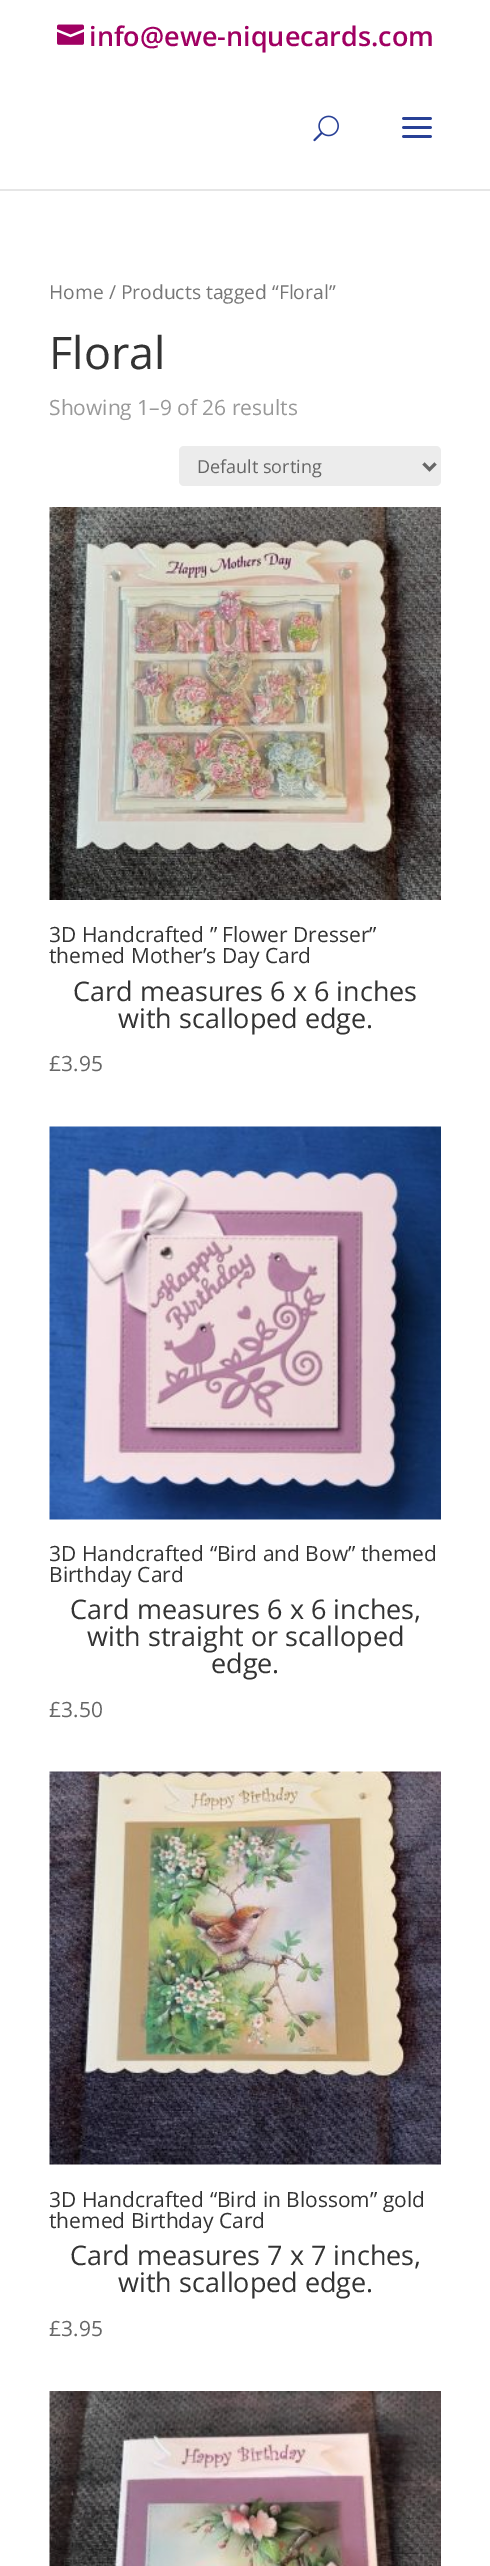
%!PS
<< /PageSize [490 2566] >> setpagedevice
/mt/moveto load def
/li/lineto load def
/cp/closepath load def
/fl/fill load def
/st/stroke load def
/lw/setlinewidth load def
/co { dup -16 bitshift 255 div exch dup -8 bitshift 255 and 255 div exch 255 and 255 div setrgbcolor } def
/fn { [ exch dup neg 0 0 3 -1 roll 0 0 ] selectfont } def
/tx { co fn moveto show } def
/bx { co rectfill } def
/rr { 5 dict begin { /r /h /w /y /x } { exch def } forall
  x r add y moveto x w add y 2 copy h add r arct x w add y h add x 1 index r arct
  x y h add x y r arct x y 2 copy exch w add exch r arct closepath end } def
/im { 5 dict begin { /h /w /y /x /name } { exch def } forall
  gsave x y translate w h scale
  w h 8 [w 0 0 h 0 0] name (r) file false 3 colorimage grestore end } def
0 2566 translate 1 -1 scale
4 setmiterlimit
0 0 490 2566 16#FFFFFF bx
(media/1.raw) 57 24 27 21 im
16#E6E6E6 co
0 189 mt 0 191 li 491 191 li 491 71 li 490 71 li 490 189 li cp fl
(media/2.raw) 313 115 26 27 im
(media/3.raw) 402 117 30 21 im
16#ECECEC co
179 446 262 40 5 rr fl
16#666666 co
3 lw
423.5 463.5 mt 429.5 469.5 li 435.5 463.5 li st
(media/4.raw) 49 507 392 393 im
(media/5.raw) 49 1126 392 394 im
(media/6.raw) 49 1771 392 394 im
(media/7.raw) 49 2391 392 175 im
(info@ewe-niquecards.com) 89 46 /OpenSans-SemiBold 27 16#A00062 tx
(Home / Products tagged “Floral”) 49 299 /OpenSans-Regular 19.3 16#767676 tx
(Floral) 49 369 /OpenSans-Regular 45 16#333333 tx
(Showing 1–9 of 26 results) 49 415 /OpenSans-Regular 21 16#999999 tx
(Default sorting) 197 473 /OpenSans-Regular 18 16#666666 tx
(3D Handcrafted ” Flower Dresser”) 49 942 /OpenSans-Regular 21 16#333333 tx
(themed Mother’s Day Card) 49 963 /OpenSans-Regular 21 16#333333 tx
(Card measures 6 x 6 inches) 73 1001 /OpenSans-Regular 27 16#333333 tx
(with scalloped edge.) 118 1028 /OpenSans-Regular 27 16#333333 tx
(£3.95) 49 1071 /OpenSans-Regular 21 16#666666 tx
(3D Handcrafted “Bird and Bow” themed) 49 1561 /OpenSans-Regular 21 16#333333 tx
(Birthday Card) 49 1582 /OpenSans-Regular 21 16#333333 tx
(Card measures 6 x 6 inches,) 70 1619 /OpenSans-Regular 27 16#333333 tx
(with straight or scalloped) 87 1646 /OpenSans-Regular 27 16#333333 tx
(edge.) 211 1673 /OpenSans-Regular 27 16#333333 tx
(£3.50) 49 1717 /OpenSans-Regular 21 16#666666 tx
(3D Handcrafted “Bird in Blossom” gold) 49 2207 /OpenSans-Regular 21 16#333333 tx
(themed Birthday Card) 49 2228 /OpenSans-Regular 21 16#333333 tx
(Card measures 7 x 7 inches,) 70 2265 /OpenSans-Regular 27 16#333333 tx
(with scalloped edge.) 118 2292 /OpenSans-Regular 27 16#333333 tx
(£3.95) 49 2336 /OpenSans-Regular 21 16#666666 tx
showpage
